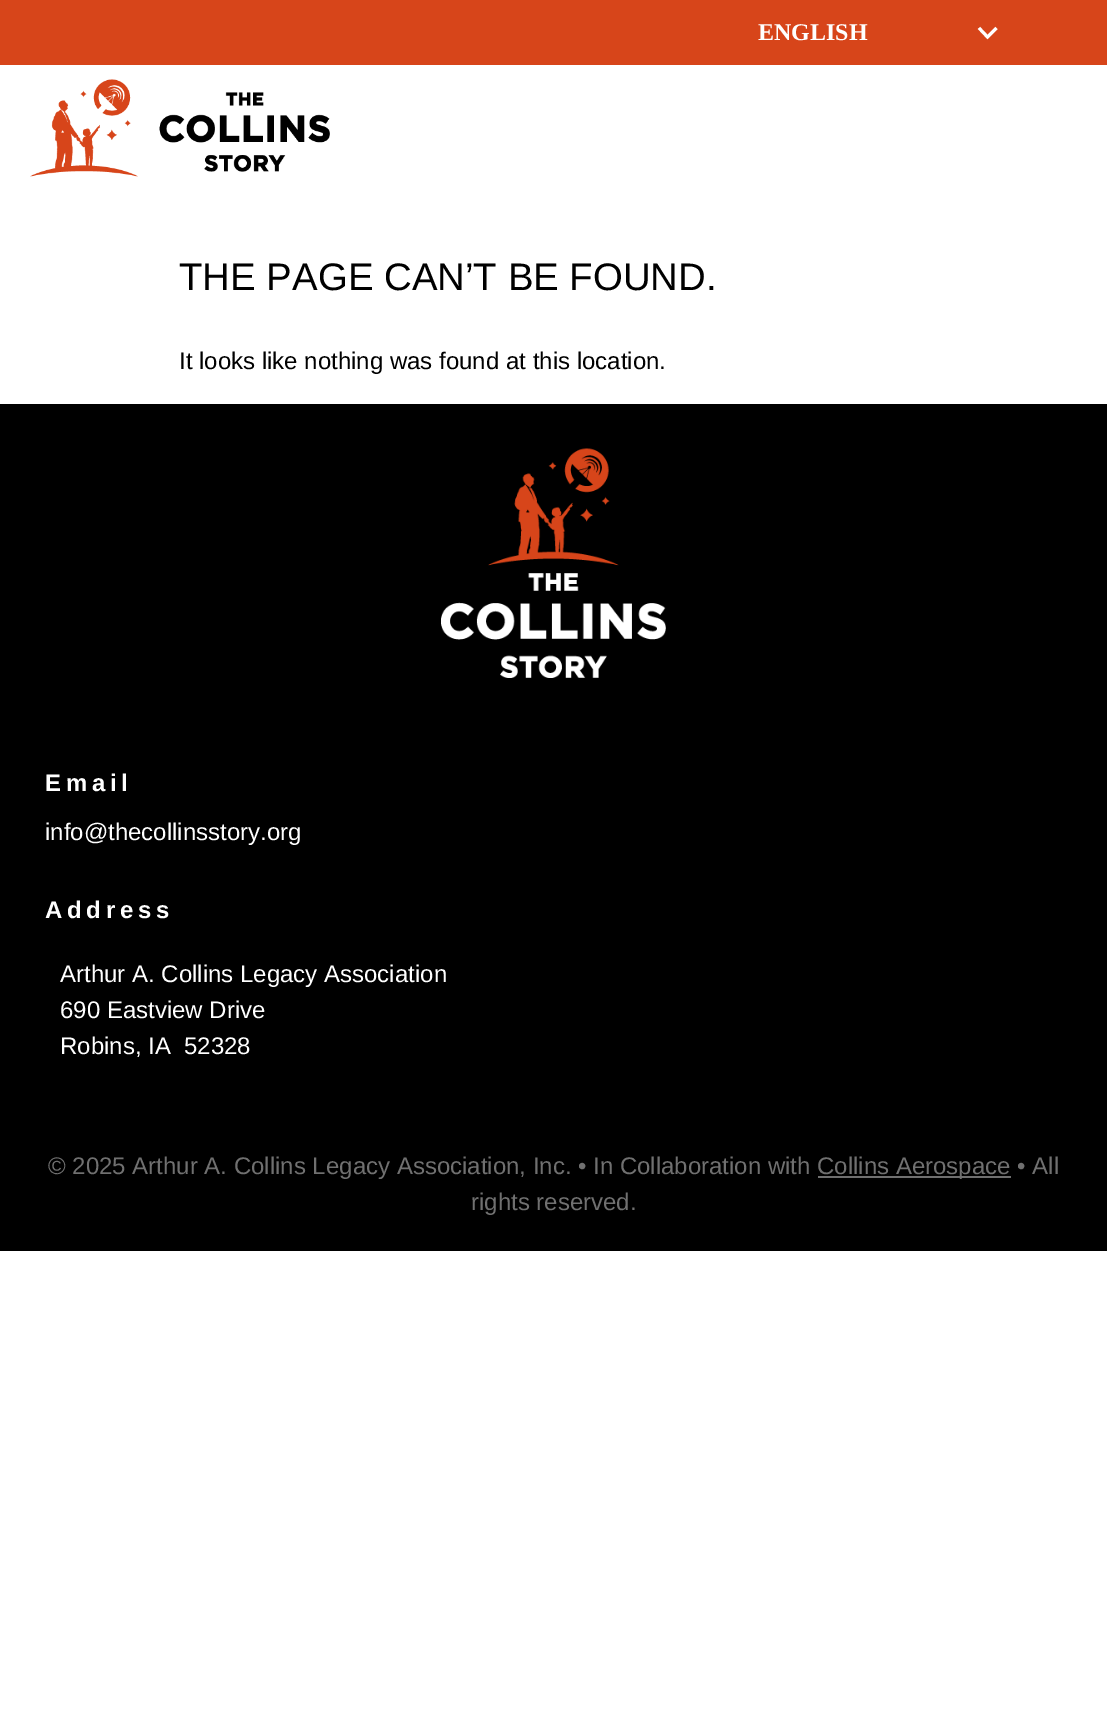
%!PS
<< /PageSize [1107 1722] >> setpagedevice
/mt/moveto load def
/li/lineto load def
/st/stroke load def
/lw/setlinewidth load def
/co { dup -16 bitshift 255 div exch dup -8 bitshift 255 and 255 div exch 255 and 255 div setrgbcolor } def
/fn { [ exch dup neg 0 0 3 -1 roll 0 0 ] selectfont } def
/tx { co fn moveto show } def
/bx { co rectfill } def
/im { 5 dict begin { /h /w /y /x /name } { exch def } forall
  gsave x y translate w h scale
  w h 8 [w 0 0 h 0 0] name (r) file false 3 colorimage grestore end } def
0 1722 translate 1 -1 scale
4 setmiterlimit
0 0 1107 1722 16#FFFFFF bx
0 0 1107 65 16#D7451A bx
16#FFFFFF co
3 lw
979 28 mt 987.5 37 li 996.5 28 li st
(media/1.raw) 30 79 300 98 im
0 404 1107 847 16#000000 bx
(media/2.raw) 441 448 225 230 im
818 1176 193 2 16#707070 bx
(ENGLISH) 758 40 /LiberationSerif-Bold 24 16#FFFFFF tx
(THE PAGE CAN’T BE FOUND.) 179 290 /LiberationSans-Regular 38.4 16#000000 tx
(It looks like nothing was found at this location.) 179 369 /LiberationSans-Regular 24 16#000000 tx
/LiberationSans-Bold 24 fn
16#FFFFFF co
45 791 mt 4.75 0 (Email) ashow
(info@thecollinsstory.org) 45 840 /LiberationSans-Regular 24 16#FFFFFF tx
/LiberationSans-Bold 24 fn
45 918 mt 4.75 0 (Address) ashow
(Arthur A. Collins Legacy Association) 60 982 /LiberationSans-Regular 24 16#FFFFFF tx
(690 Eastview Drive) 60 1018 /LiberationSans-Regular 24 16#FFFFFF tx
(Robins, IA  52328) 60 1054 /LiberationSans-Regular 24 16#FFFFFF tx
(© 2025 Arthur A. Collins Legacy Association, Inc. • In Collaboration with) 48 1174 /LiberationSans-Regular 24 16#707070 tx
(Collins Aerospace • All) 817 1174 /LiberationSans-Regular 24 16#707070 tx
(rights reserved.) 471 1210 /LiberationSans-Regular 24 16#707070 tx
showpage
